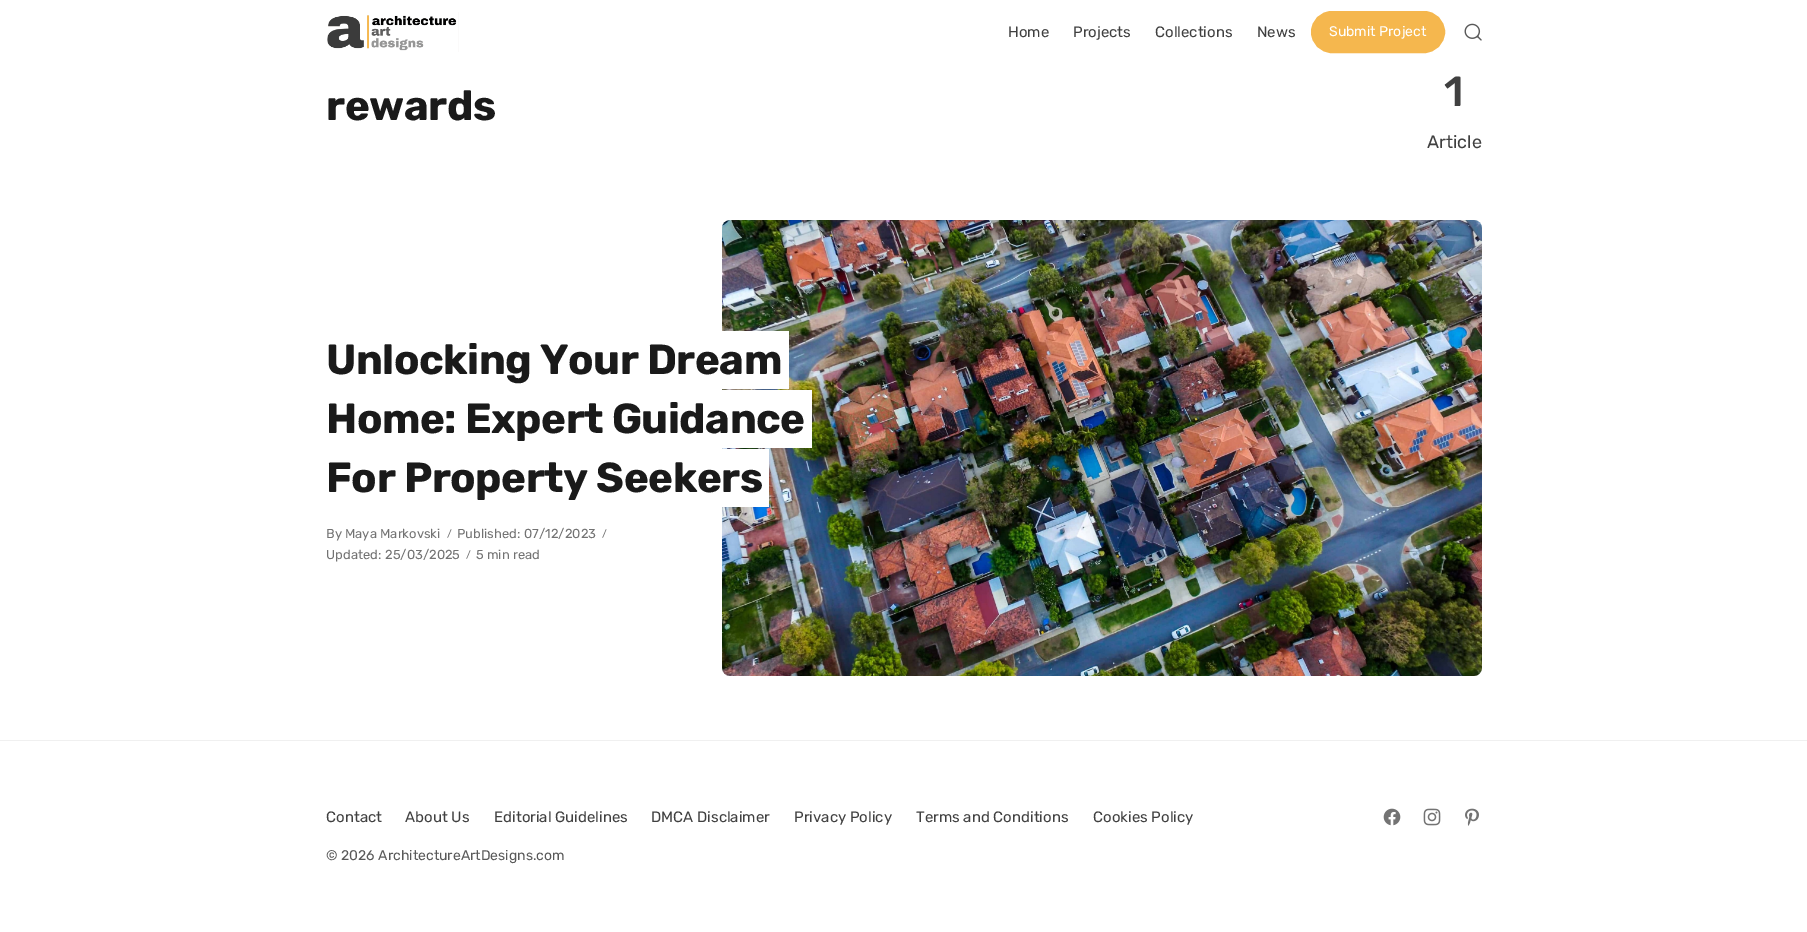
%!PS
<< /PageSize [1807 932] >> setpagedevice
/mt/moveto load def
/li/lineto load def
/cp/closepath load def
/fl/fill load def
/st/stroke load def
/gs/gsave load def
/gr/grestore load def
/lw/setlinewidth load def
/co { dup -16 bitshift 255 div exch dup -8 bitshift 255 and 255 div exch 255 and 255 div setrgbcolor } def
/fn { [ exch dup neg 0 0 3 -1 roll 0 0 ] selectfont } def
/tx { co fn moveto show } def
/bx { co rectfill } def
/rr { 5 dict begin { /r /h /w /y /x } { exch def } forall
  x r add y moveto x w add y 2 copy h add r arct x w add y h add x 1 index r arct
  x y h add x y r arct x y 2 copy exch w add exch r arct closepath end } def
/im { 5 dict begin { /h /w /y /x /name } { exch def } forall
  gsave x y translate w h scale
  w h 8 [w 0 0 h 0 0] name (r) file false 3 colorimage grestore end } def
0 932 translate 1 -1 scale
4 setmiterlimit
0 0 1807 932 16#FFFFFF bx
(media/1.raw) 327 12 132 40 im
16#F5B74E co
1312 12 132 40 20 rr gs fl gr
2 lw
st
(media/2.raw) 1464 23 18 18 im
16#F0F0F0 co
722 220 760 456 8 rr fl
(media/3.raw) 722 220 760 456 im
16#FFFFFF co
334 331 mt 334 335 li 781 335 li 781 381 li 789 381 li 789 331 li cp fl
334 385 mt 334 389 li 789 389 li 789 339 li 781 339 li 781 385 li cp fl
722 335 59 50 16#FFFFFF bx
334 390 mt 334 394 li 804 394 li 804 440 li 812 440 li 812 390 li cp fl
334 444 mt 334 448 li 812 448 li 812 398 li 804 398 li 804 444 li cp fl
722 394 82 50 16#FFFFFF bx
334 449 mt 334 453 li 761 453 li 761 499 li 769 499 li 769 449 li cp fl
334 503 mt 334 507 li 769 507 li 769 457 li 761 457 li 761 503 li cp fl
722 453 39 50 16#FFFFFF bx
0 740 1807 1 16#F0F0F0 bx
(media/4.raw) 1383 808 18 18 im
(media/5.raw) 1423 808 18 18 im
(media/6.raw) 1465 808 14 18 im
(Home) 1008 37 /Rubik-Regular 15 16#404040 tx
(Projects) 1073 37 /Rubik-Regular 15 16#404040 tx
(Collections) 1155 37 /Rubik-Regular 15 16#404040 tx
(News) 1257 37 /Rubik-Regular 15 16#404040 tx
(Submit Project) 1329 36 /Rubik-Regular 14 16#FFFFFF tx
/Rubik-Bold 42 fn
16#1A1A1A co
326 120 mt -.5 0 (rewards) ashow
(1) 1444 106 /Rubik-Medium 42 16#404040 tx
(Article) 1427 148 /Rubik-Regular 18 16#404040 tx
/Rubik-Bold 42 fn
16#1A1A1A co
326 374 mt -.5 0 (Unlocking Your Dream) ashow
326 433 mt -.5 0 (Home: Expert Guidance) ashow
326 492 mt -.5 0 (For Property Seekers) ashow
(By) 326 538 /Rubik-Regular 13 16#737373 tx
(Maya Markovski) 345 538 /Rubik-Regular 13 16#737373 tx
(/) 447 537 /Rubik-Regular 10 16#737373 tx
(Published:) 457 538 /Rubik-Regular 13 16#737373 tx
(07/12/2023) 524 538 /Rubik-Regular 13 16#737373 tx
(/) 602 537 /Rubik-Regular 10 16#737373 tx
(Updated:) 326 559 /Rubik-Regular 13 16#737373 tx
(25/03/2025) 385 559 /Rubik-Regular 13 16#737373 tx
(/) 466 558 /Rubik-Regular 10 16#737373 tx
(5 min read) 476 559 /Rubik-Regular 13 16#737373 tx
(Contact) 326 822 /Rubik-Regular 15 16#404040 tx
(About Us) 405 822 /Rubik-Regular 15 16#404040 tx
(Editorial Guidelines) 494 822 /Rubik-Regular 15 16#404040 tx
(DMCA Disclaimer) 651 822 /Rubik-Regular 15 16#404040 tx
(Privacy Policy) 794 822 /Rubik-Regular 15 16#404040 tx
(Terms and Conditions) 916 822 /Rubik-Regular 15 16#404040 tx
(Cookies Policy) 1093 822 /Rubik-Regular 15 16#404040 tx
(© 2026 ArchitectureArtDesigns.com) 326 860 /Rubik-Regular 14 16#595959 tx
showpage
